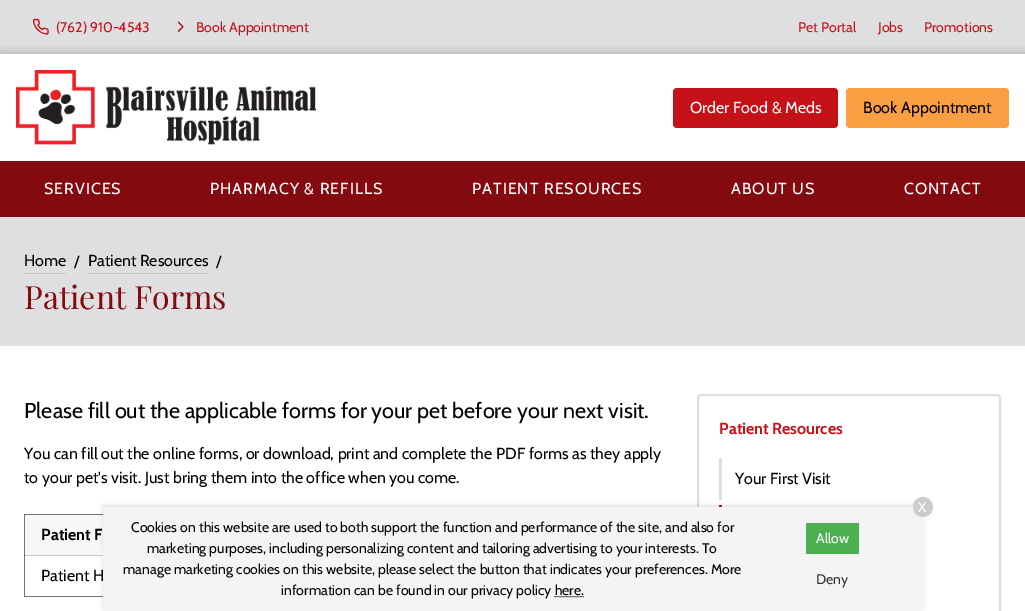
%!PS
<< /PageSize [1025 611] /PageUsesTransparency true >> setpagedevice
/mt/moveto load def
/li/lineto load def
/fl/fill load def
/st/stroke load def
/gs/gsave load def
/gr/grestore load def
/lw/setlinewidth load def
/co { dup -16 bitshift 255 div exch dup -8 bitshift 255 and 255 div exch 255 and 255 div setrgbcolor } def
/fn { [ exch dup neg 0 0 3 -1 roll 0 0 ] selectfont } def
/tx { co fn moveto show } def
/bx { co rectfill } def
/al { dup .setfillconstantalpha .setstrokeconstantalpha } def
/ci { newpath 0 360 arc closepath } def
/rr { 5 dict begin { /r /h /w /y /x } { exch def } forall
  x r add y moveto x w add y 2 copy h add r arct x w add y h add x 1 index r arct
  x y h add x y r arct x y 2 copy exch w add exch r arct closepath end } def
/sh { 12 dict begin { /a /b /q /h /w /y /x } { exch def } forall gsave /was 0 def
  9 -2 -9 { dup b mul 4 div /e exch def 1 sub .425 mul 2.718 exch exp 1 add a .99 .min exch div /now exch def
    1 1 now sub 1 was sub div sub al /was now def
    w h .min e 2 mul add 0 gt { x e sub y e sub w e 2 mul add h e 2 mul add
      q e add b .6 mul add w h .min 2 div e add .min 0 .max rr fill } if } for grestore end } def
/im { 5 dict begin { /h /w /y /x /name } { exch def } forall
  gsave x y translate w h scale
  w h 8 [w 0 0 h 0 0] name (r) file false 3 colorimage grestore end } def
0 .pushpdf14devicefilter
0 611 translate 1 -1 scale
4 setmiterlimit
0 0 1025 611 16#FFFFFF bx
0 0 1025 54 16#DFDFE1 bx
(media/1.raw) 32 18 17 17 im
(media/2.raw) 177 21 7 11 im
gs
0 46 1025 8 rectclip
16#000000 co
0 56 1025 107 0 6 .4 sh
gr
(media/3.raw) 16 70 300 75 im
16#C51117 co
673 88 165 40 4 rr fl
16#FA9E42 co
846 88 163 40 4 rr fl
0 161 1025 56 16#830B0F bx
0 217 1025 129 16#DFDFE1 bx
24 273 42 1 16#C9C9CB bx
88 273 120 1 16#C9C9CB bx
24 596 79 1 16#737373 bx
24 514 1 83 16#737373 bx
24 596 1 1 16#686868 bx
24 555 1 1 16#555555 bx
25 515 78 40 16#F7F7F7 bx
25 555 78 1 16#C8C8C8 bx
24 514 79 1 16#737373 bx
24 514 1 1 16#686868 bx
16#DFDFE1 co
2 lw
698 395 302 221 3 rr st
719 458 3 42 16#DFDFE1 bx
719 505 3 2 16#C51117 bx
16#000000 co
103 505 820 104 0 2.5 .1 sh
103 507 820 104 16#F4F4F4 bx
16#CCCCCC co
923 507 10 ci fl
16#000000 co
1 lw
[1 1] 0 setdash
554.5 596.5 mt 584 596.5 li st
806 523 53 31 16#4CAF50 bx
(\(762\) 910-4543) 56 32 /Cabin-Regular 14 16#C51117 tx
(Book Appointment) 196 32 /Cabin-Regular 14 16#C51117 tx
(Pet Portal) 798 32 /Cabin-Regular 14 16#C51117 tx
(Jobs) 878 32 /Cabin-Regular 14 16#C51117 tx
(Promotions) 924 32 /Cabin-Regular 14 16#C51117 tx
(Order Food & Meds) 690 113 /Cabin-Regular 16 16#FFFFFF tx
(Book Appointment) 863 113 /Cabin-Regular 16 16#000000 tx
16#FFFFFF co
44 194 mt 1 0 (SERVICES) ashow
210 194 mt 1 0 (PHARMACY & REFILLS) ashow
472 194 mt 1 0 (PATIENT RESOURCES) ashow
731 194 mt 1 0 (ABOUT US) ashow
904 194 mt 1 0 (CONTACT) ashow
(Home) 24 266 /Cabin-Regular 16 16#000000 tx
(/) 74 267 /Cabin-Regular 16 16#000000 tx
(Patient Resources) 88 266 /Cabin-Regular 16 16#000000 tx
(/) 216 267 /Cabin-Regular 16 16#000000 tx
(Patient Forms) 24 309 /PlayfairDisplay-Regular 32 16#830B0F tx
(Please fill out the applicable forms for your pet before your next visit.) 24 418 /Cabin-Regular 21.6 16#000000 tx
(You can fill out the online forms, or download, print and complete the PDF forms as they apply) 24 459 /Cabin-Regular 16 16#000000 tx
(to your pet's visit. Just bring them into the office when you come.) 24 483 /Cabin-Regular 16 16#000000 tx
(Patient F) 41 540 /Cabin-Bold 16 16#000000 tx
(Patient H) 41 581 /Cabin-Regular 16 16#000000 tx
(Patient Resources) 719 434 /Cabin-Bold 16 16#C51117 tx
(Your First Visit) 735 484 /Cabin-Regular 16 16#000000 tx
(X) 918 512 /Cabin-Regular 14 16#FFFFFF tx
(Cookies on this website are used to both support the function and performance of the site, and also for) 131 532 /Cabin-Regular 14 16#000000 tx
(marketing purposes, including personalizing content and tailoring advertising to your interests. To) 147 553 /Cabin-Regular 14 16#000000 tx
(manage marketing cookies on this website, please select the button that indicates your preferences. More) 123 574 /Cabin-Regular 14 16#000000 tx
(information can be found in our privacy policy here.) 281 595 /Cabin-Regular 14 16#000000 tx
(Allow) 816 543 /Cabin-Regular 14 16#FFFFFF tx
(Deny) 816 584 /Cabin-Regular 14 16#333333 tx
.poppdf14devicefilter showpage
